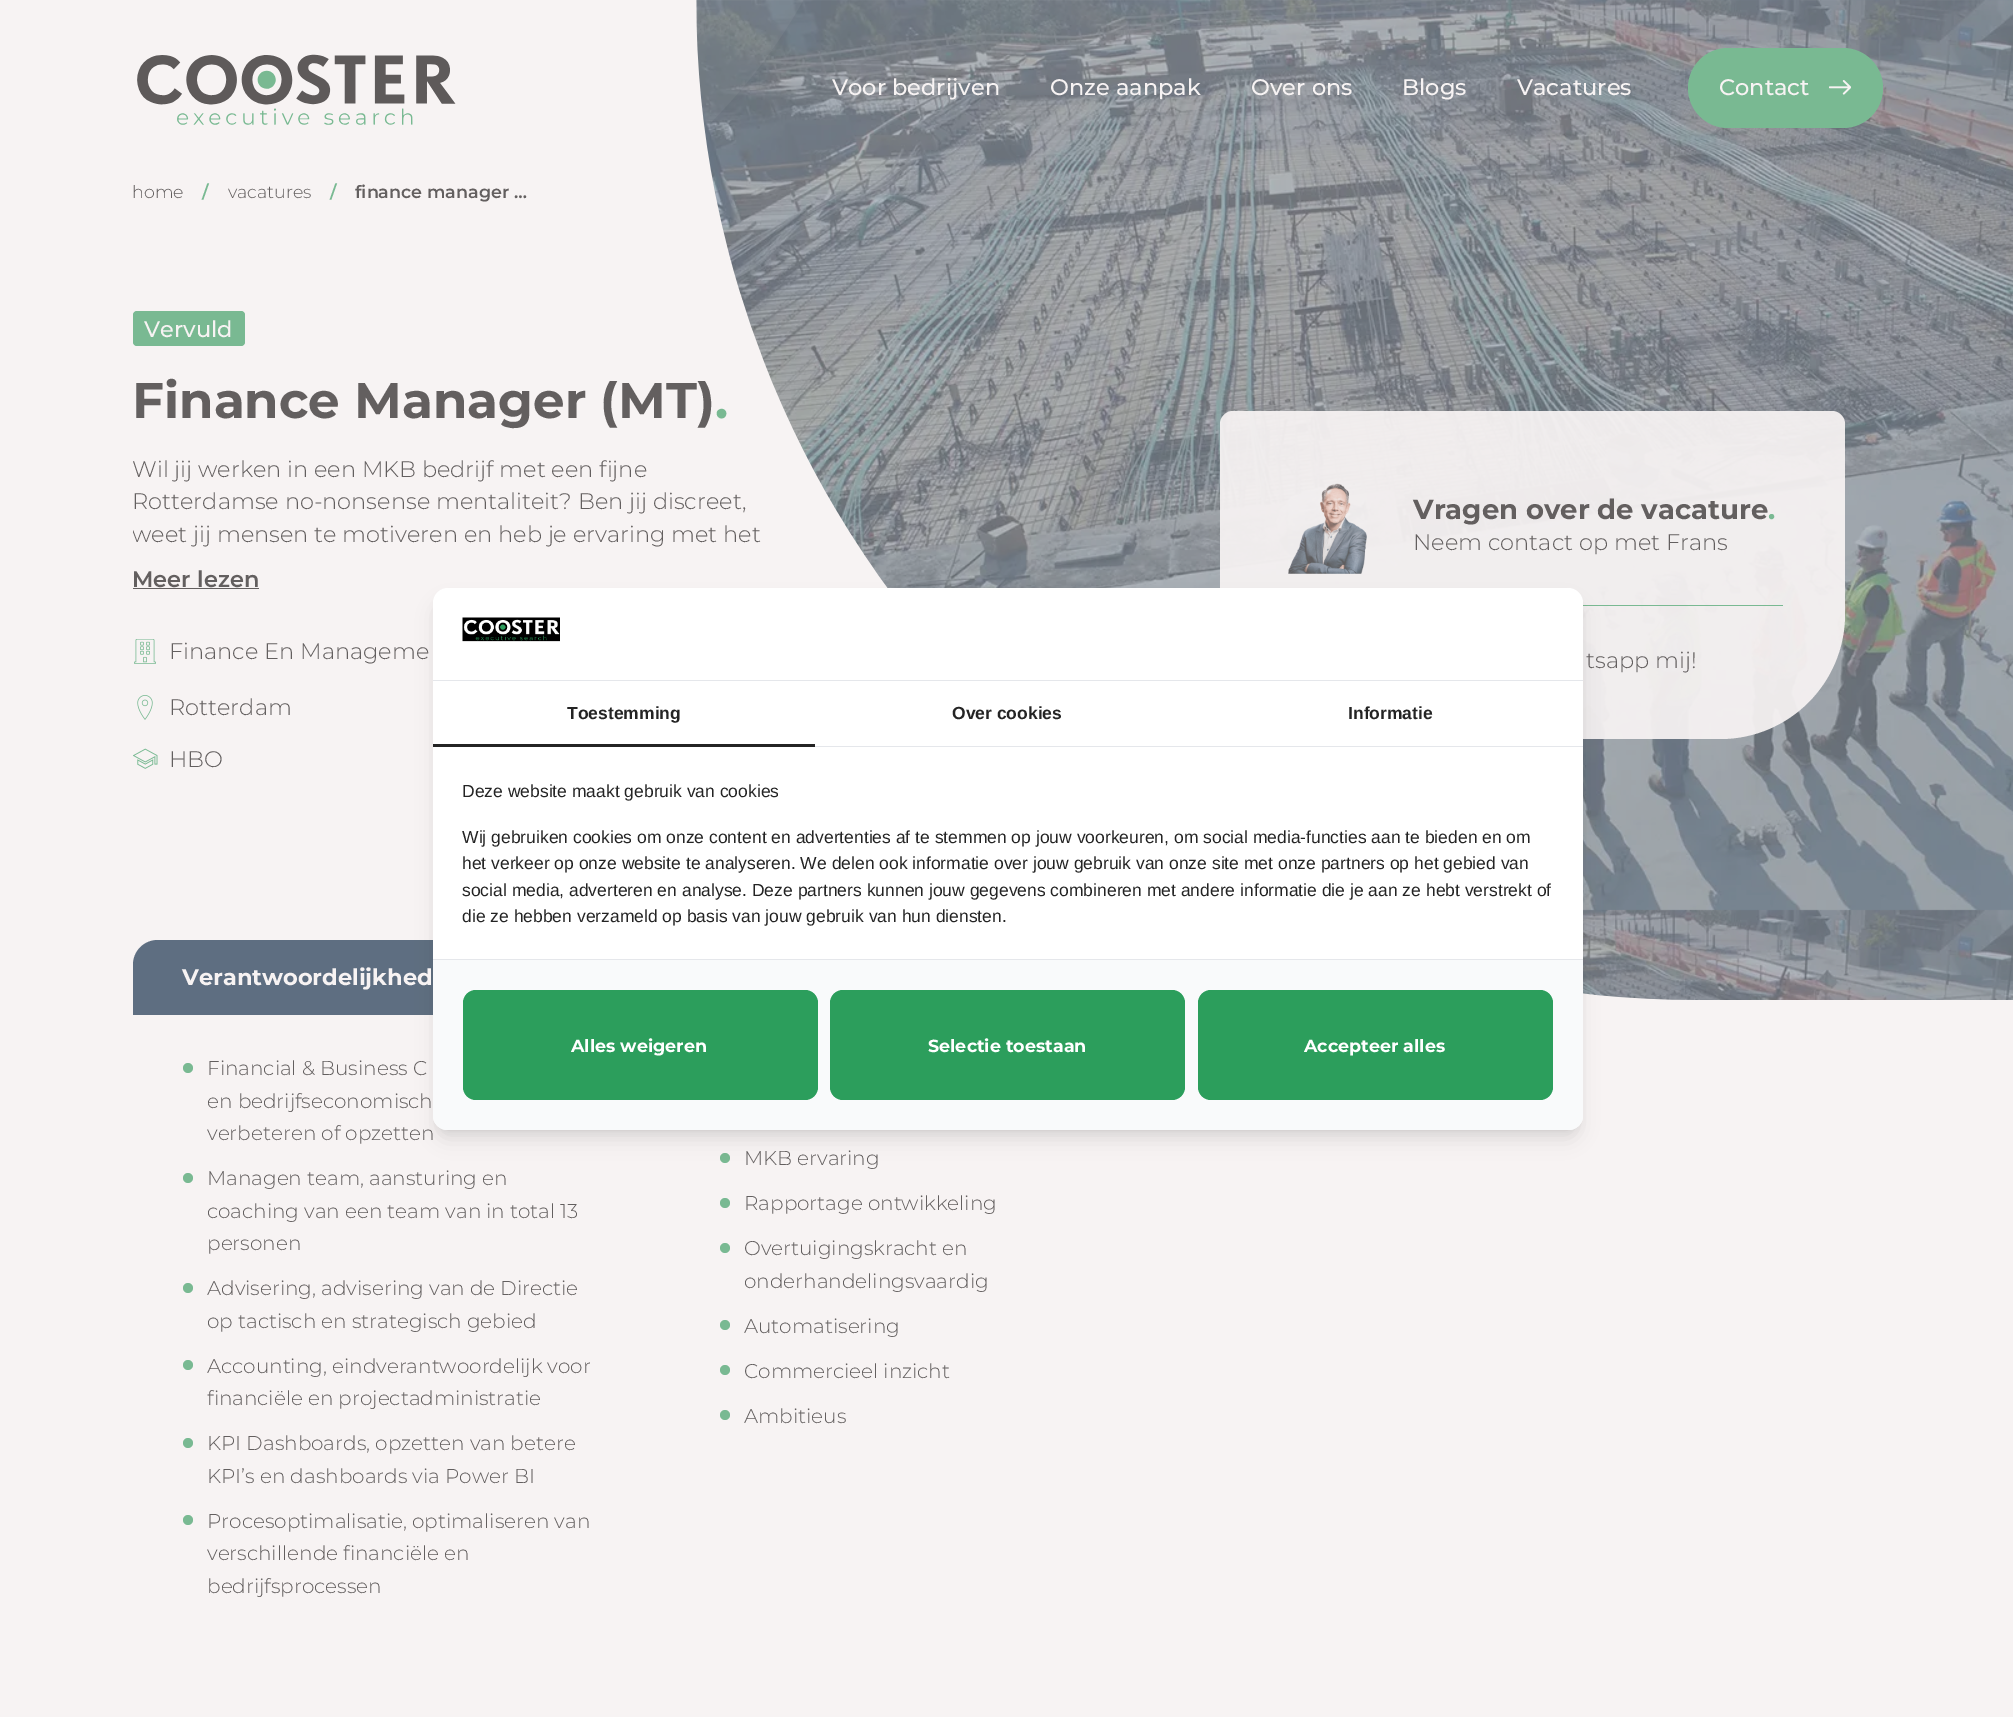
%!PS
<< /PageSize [2013 1717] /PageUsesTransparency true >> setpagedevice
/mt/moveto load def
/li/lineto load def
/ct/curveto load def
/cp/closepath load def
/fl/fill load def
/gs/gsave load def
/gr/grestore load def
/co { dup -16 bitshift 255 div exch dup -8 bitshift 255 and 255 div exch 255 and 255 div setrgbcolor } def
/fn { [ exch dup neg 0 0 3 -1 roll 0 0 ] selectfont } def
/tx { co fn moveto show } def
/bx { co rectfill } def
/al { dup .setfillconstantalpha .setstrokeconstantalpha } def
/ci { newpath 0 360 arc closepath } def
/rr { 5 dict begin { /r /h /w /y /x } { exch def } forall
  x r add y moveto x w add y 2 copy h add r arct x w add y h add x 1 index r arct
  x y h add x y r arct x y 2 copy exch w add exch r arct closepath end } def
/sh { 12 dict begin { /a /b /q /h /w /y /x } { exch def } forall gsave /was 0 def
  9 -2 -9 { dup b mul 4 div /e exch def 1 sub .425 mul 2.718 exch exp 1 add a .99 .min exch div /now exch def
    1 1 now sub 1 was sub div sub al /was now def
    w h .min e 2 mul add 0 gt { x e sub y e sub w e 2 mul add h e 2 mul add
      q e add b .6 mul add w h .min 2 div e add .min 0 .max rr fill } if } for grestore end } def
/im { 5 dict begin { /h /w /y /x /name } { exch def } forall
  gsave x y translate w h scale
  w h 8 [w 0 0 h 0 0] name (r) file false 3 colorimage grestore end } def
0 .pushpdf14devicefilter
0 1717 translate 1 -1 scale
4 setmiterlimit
0 0 2013 1717 16#F7F3F3 bx
(media/4.raw) 696 0 1317 1000 im
(media/1.raw) 696 0 107 128 im
(media/2.raw) 137 54 319 71 im
16#79B992 co
1688 48 195 80 40 rr fl
(media/3.raw) 1829 80 22 15 im
133 311 112 35 4 rr fl
133 588 126 1 16#635F5F bx
(media/5.raw) 134 639 22 25 im
(media/6.raw) 137 695 16 25 im
(media/7.raw) 133 748 25 21 im
16#5E6E81 co
158 940 mt 620 940 li 634 940 645 951 645 965 ct 645 1015 li 133 1015 li 133 965 li 133 951 144 940 158 940 ct cp fl
16#79B992 co
188 1068 5 ci fl
188 1178 5 ci fl
188 1288 5 ci fl
188 1365 5 ci fl
188 1443 5 ci fl
188 1520 5 ci fl
725 1158 5 ci fl
725 1203 5 ci fl
725 1248 5 ci fl
725 1325 5 ci fl
725 1370 5 ci fl
725 1415 5 ci fl
0.93 al
16#F7F3F3 co
1233 411 mt 1832 411 li 1839 411 1845 417 1845 424 ct 1845 614 li 1845 683 1789 739 1720 739 ct 1233 739 li 1226 739 1220 733 1220 726 ct 1220 424 li 1220 417 1226 411 1233 411 ct cp fl
1 al
(media/8.raw) 1288 483 79 91 im
1583 605 200 1 16#79B992 bx
16#000000 co
438 598 1140 532 10 4 .1 sh
436 604 1143 535 11 9.5 .1 sh
16#FFFFFF co
433 588 1150 542 15 rr fl
433 680 1150 1 16#E5E7EB bx
(media/9.raw) 462 617 98 25 im
815 746 768 1 16#E5E7EB bx
433 744 382 3 16#242424 bx
gs
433 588 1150 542 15 rr clip newpath
16#FFFFFF co
423 924 1170 191 0 12.5 1 sh
gr
16#F9FAFB co
433 959 mt 1583 959 li 1583 1115 li 1583 1123.5 1576.5 1130 1568 1130 ct 448 1130 li 439.5 1130 433 1123.5 433 1115 ct cp fl
433 959 1150 1 16#E5E7EB bx
16#2C9E5C co
463 990 355 110 13 rr fl
830 990 355 110 13 rr fl
1198 990 355 110 13 rr fl
(Voor bedrijven) 832 95 /Montserrat-Medium 22.5 16#F7F3F3 tx
(Onze aanpak) 1050 95 /Montserrat-Medium 22.5 16#F7F3F3 tx
(Over ons) 1251 95 /Montserrat-Medium 22.5 16#F7F3F3 tx
(Blogs) 1402 95 /Montserrat-Medium 22.5 16#F7F3F3 tx
(Vacatures) 1517 95 /Montserrat-Medium 22.5 16#F7F3F3 tx
(Contact) 1719 95 /Montserrat-Medium 22.5 16#F7F3F3 tx
(home) 132 198 /Montserrat-Light 17.5 16#635F5F tx
(/) 202 198 /Montserrat-SemiBold 17.5 16#79B992 tx
(vacatures) 228 198 /Montserrat-Light 17.5 16#635F5F tx
(/) 330 198 /Montserrat-SemiBold 17.5 16#79B992 tx
(finance manager …) 355 198 /Montserrat-SemiBold 17.5 16#635F5F tx
(Vervuld) 144 337 /Montserrat-Medium 22.5 16#F7F3F3 tx
(Finance Manager \(MT\)) 132 418 /Montserrat-Bold 50 16#635F5F tx
(.) 715 418 /Montserrat-Bold 50 16#79B992 tx
(Wil jij werken in een MKB bedrijf met een fijne) 132 477 /Montserrat-Light 22.5 16#635F5F tx
(Rotterdamse no-nonsense mentaliteit? Ben jij discreet,) 132 509 /Montserrat-Light 22.5 16#635F5F tx
gs
133 453 630 97 rectclip
(weet jij mensen te motiveren en heb je ervaring met het) 132 542 /Montserrat-Light 22.5 16#635F5F tx
gr
(Meer lezen) 132 587 /Montserrat-SemiBold 22.5 16#635F5F tx
(Finance En Manageme) 169 659 /Montserrat-Light 22.5 16#635F5F tx
(Rotterdam) 169 715 /Montserrat-Light 22.5 16#635F5F tx
(HBO) 169 767 /Montserrat-Light 22.5 16#635F5F tx
(Verantwoordelijkhed) 182 985 /Montserrat-Bold 22.5 16#F7F3F3 tx
(Financial & Business C) 207 1075 /Montserrat-Light 20 16#635F5F tx
(en bedrijfseconomisch) 207 1108 /Montserrat-Light 20 16#635F5F tx
(verbeteren of opzetten) 207 1140 /Montserrat-Light 20 16#635F5F tx
(Managen team, aansturing en) 207 1185 /Montserrat-Light 20 16#635F5F tx
(coaching van een team van in total 13) 207 1218 /Montserrat-Light 20 16#635F5F tx
(personen) 207 1250 /Montserrat-Light 20 16#635F5F tx
(Advisering, advisering van de Directie) 207 1295 /Montserrat-Light 20 16#635F5F tx
(op tactisch en strategisch gebied) 207 1328 /Montserrat-Light 20 16#635F5F tx
(Accounting, eindverantwoordelijk voor) 207 1373 /Montserrat-Light 20 16#635F5F tx
(financiële en projectadministratie) 207 1405 /Montserrat-Light 20 16#635F5F tx
(KPI Dashboards, opzetten van betere) 207 1450 /Montserrat-Light 20 16#635F5F tx
(KPI’s en dashboards via Power BI) 207 1483 /Montserrat-Light 20 16#635F5F tx
(Procesoptimalisatie, optimaliseren van) 207 1528 /Montserrat-Light 20 16#635F5F tx
(verschillende financiële en) 207 1560 /Montserrat-Light 20 16#635F5F tx
(bedrijfsprocessen) 207 1593 /Montserrat-Light 20 16#635F5F tx
(MKB ervaring) 744 1165 /Montserrat-Light 20 16#635F5F tx
(Rapportage ontwikkeling) 744 1210 /Montserrat-Light 20 16#635F5F tx
(Overtuigingskracht en) 744 1255 /Montserrat-Light 20 16#635F5F tx
(onderhandelingsvaardig) 744 1288 /Montserrat-Light 20 16#635F5F tx
(Automatisering) 744 1333 /Montserrat-Light 20 16#635F5F tx
(Commercieel inzicht) 744 1378 /Montserrat-Light 20 16#635F5F tx
(Ambitieus) 744 1423 /Montserrat-Light 20 16#635F5F tx
(Vragen over de vacature) 1413 519 /Montserrat-Bold 27.5 16#635F5F tx
(.) 1768 519 /Montserrat-Bold 27.5 16#79B992 tx
(Neem contact op met Frans) 1413 550 /Montserrat-Light 22.5 16#635F5F tx
(tsapp mij!) 1586 668 /Montserrat-Light 22.5 16#635F5F tx
(Toestemming) 567 719 /LiberationSans-Bold 17.5 16#242424 tx
(Over cookies) 952 719 /LiberationSans-Bold 17.5 16#242424 tx
(Informatie) 1348 719 /LiberationSans-Bold 17.5 16#242424 tx
(Deze website maakt gebruik van cookies) 462 797 /LiberationSans-Regular 17.5 16#242424 tx
(Wij gebruiken cookies om onze content en advertenties af te stemmen op jouw voorkeuren, om social media-functies aan te bieden en om) 462 843 /LiberationSans-Regular 17.5 16#242424 tx
(het verkeer op onze website te analyseren. We delen ook informatie over jouw gebruik van onze site met onze partners op het gebied van) 462 869 /LiberationSans-Regular 17.5 16#242424 tx
(social media, adverteren en analyse. Deze partners kunnen jouw gegevens combineren met andere informatie die je aan ze hebt verstrekt of) 462 896 /LiberationSans-Regular 17.5 16#242424 tx
(die ze hebben verzameld op basis van jouw gebruik van hun diensten.) 462 922 /LiberationSans-Regular 17.5 16#242424 tx
(Alles weigeren) 571 1052 /Montserrat-Bold 17.5 16#FFFFFF tx
(Selectie toestaan) 928 1052 /Montserrat-Bold 17.5 16#FFFFFF tx
(Accepteer alles) 1304 1052 /Montserrat-Bold 17.5 16#FFFFFF tx
.poppdf14devicefilter showpage
